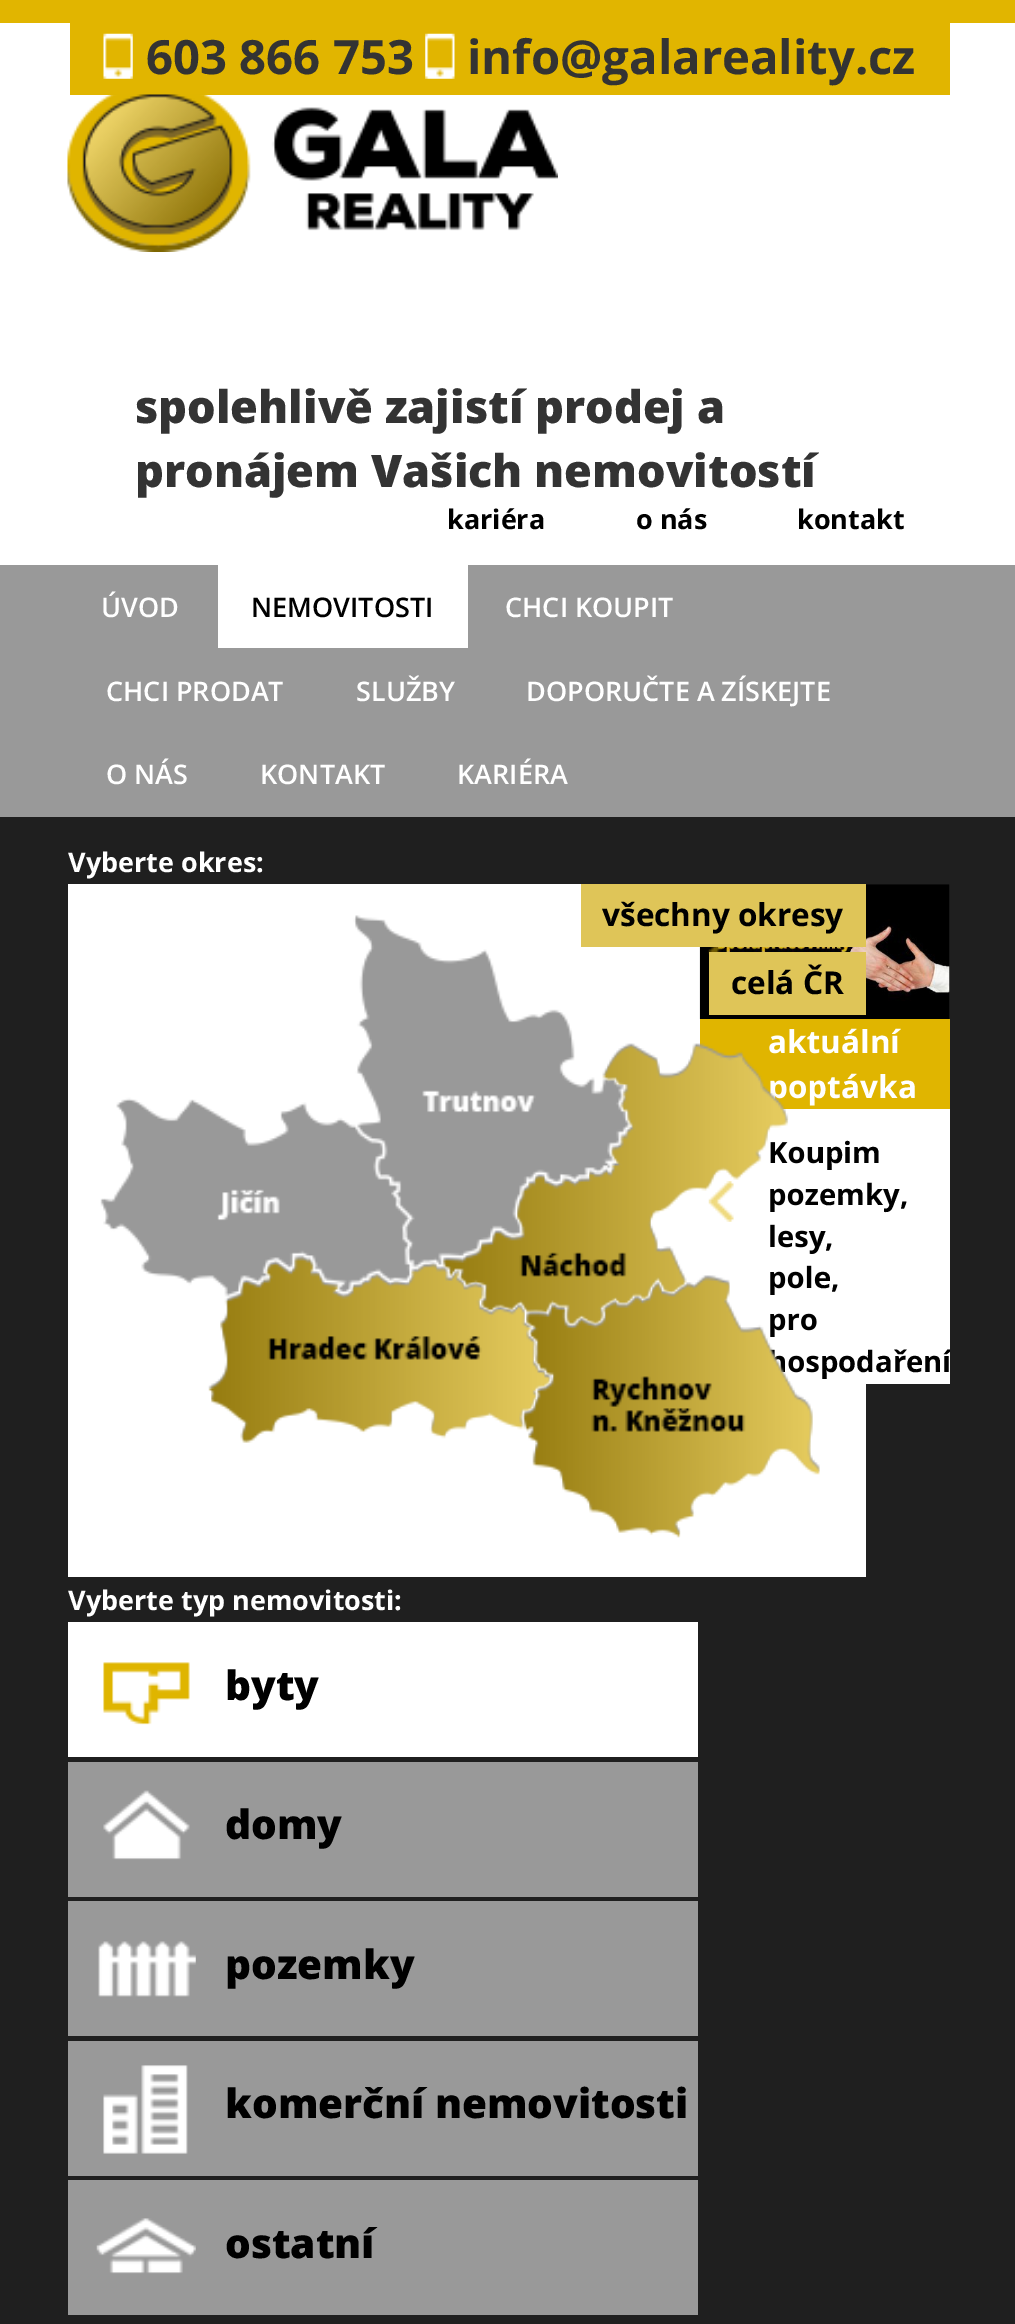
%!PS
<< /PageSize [1015 2324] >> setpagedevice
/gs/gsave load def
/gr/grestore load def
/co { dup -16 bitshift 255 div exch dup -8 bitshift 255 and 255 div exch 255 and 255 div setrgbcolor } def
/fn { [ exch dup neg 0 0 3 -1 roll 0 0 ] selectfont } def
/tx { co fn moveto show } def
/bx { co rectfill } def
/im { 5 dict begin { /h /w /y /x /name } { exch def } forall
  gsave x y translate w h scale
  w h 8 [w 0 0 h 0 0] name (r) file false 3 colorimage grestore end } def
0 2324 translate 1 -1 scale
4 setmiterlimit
0 0 1015 2324 16#1F1F1F bx
0 23 1015 542 16#FFFFFF bx
0 0 1015 23 16#E1B500 bx
70 23 880 72 16#E1B500 bx
(media/1.raw) 103 33 30 46 im
(media/2.raw) 425 33 30 46 im
(media/3.raw) 67 94 491 158 im
0 565 1015 252 16#999999 bx
218 565 250 83 16#FFFFFF bx
68 884 798 693 16#FFFFFF bx
68 1622 630 135 16#FFFFFF bx
(media/8.raw) 103 1662 87 63 im
68 1762 630 135 16#999999 bx
(media/9.raw) 103 1790 87 70 im
68 1901 630 135 16#999999 bx
(media/10.raw) 98 1941 98 56 im
68 2041 630 135 16#999999 bx
(media/11.raw) 103 2065 85 89 im
68 2180 630 135 16#999999 bx
(media/12.raw) 96 2218 100 56 im
(media/13.raw) 699 884 251 135 im
(media/14.raw) 708 947 17 7 im
700 1019 250 90 16#E0B500 bx
(media/15.raw) 708 1181 26 41 im
866 1109 84 275 16#FFFFFF bx
(603 866 753) 146 74 /OpenSans-Bold 47.25 16#333333 tx
(info@galareality.cz) 467 74 /OpenSans-Bold 47.25 16#333333 tx
(spolehlivě zajistí prodej a) 135 423 /OpenSans-ExtraBold 45 16#333333 tx
(pronájem Vašich nemovitostí) 135 487 /OpenSans-ExtraBold 45 16#333333 tx
(kariéra) 447 529 /OpenSans-Bold 27 16#000000 tx
(o nás) 636 529 /OpenSans-Bold 27 16#000000 tx
(kontakt) 797 529 /OpenSans-Bold 27 16#000000 tx
(ÚVOD) 101 617 /OpenSans-SemiBold 27 16#FFFFFF tx
(NEMOVITOSTI) 251 617 /OpenSans-SemiBold 27 16#000000 tx
(CHCI KOUPIT) 505 617 /OpenSans-SemiBold 27 16#FFFFFF tx
(CHCI PRODAT) 106 701 /OpenSans-SemiBold 27 16#FFFFFF tx
(SLUŽBY) 356 701 /OpenSans-SemiBold 27 16#FFFFFF tx
(DOPORUČTE A ZÍSKEJTE) 526 701 /OpenSans-SemiBold 27 16#FFFFFF tx
(O NÁS) 106 784 /OpenSans-SemiBold 27 16#FFFFFF tx
(KONTAKT) 260 784 /OpenSans-SemiBold 27 16#FFFFFF tx
(KARIÉRA) 457 784 /OpenSans-SemiBold 27 16#FFFFFF tx
(Vyberte okres:) 68 872 /OpenSans-Bold 27 16#FFFFFF tx
(Vyberte typ nemovitosti:) 68 1610 /OpenSans-Bold 27 16#FFFFFF tx
(byty) 225 1700 /OpenSans-ExtraBold 40.5 16#000000 tx
(domy) 225 1839 /OpenSans-ExtraBold 40.5 16#000000 tx
(pozemky) 225 1979 /OpenSans-ExtraBold 40.5 16#000000 tx
(komerční nemovitosti) 225 2118 /OpenSans-ExtraBold 40.5 16#000000 tx
(ostatní) 225 2258 /OpenSans-ExtraBold 40.5 16#000000 tx
(aktuální) 768 1053 /OpenSans-Bold 31.5 16#FFFFFF tx
(poptávka) 768 1098 /OpenSans-Bold 31.5 16#FFFFFF tx
(Koupim) 768 1163 /OpenSans-Bold 29.25 16#000000 tx
(pozemky,) 768 1205 /OpenSans-Bold 29.25 16#000000 tx
(lesy,) 768 1247 /OpenSans-Bold 29.25 16#000000 tx
(pole,) 768 1288 /OpenSans-Bold 29.25 16#000000 tx
(pro) 768 1330 /OpenSans-Bold 29.25 16#000000 tx
gs
700 1109 250 275 rectclip
(hospodaření) 768 1372 /OpenSans-Bold 29.25 16#000000 tx
gr
(media/4.raw) 100 915 720 620 im
581 884 285 63 16#DFC558 bx
(všechny okresy) 602 926 /OpenSans-Bold 31.5 16#000000 tx
709 952 157 63 16#DFC558 bx
(celá ČR) 731 994 /OpenSans-Bold 31.5 16#000000 tx
(media/6.raw) 208 1257 343 186 im
(media/5.raw) 442 1045 346 281 im
(media/7.raw) 523 1277 297 261 im
showpage
